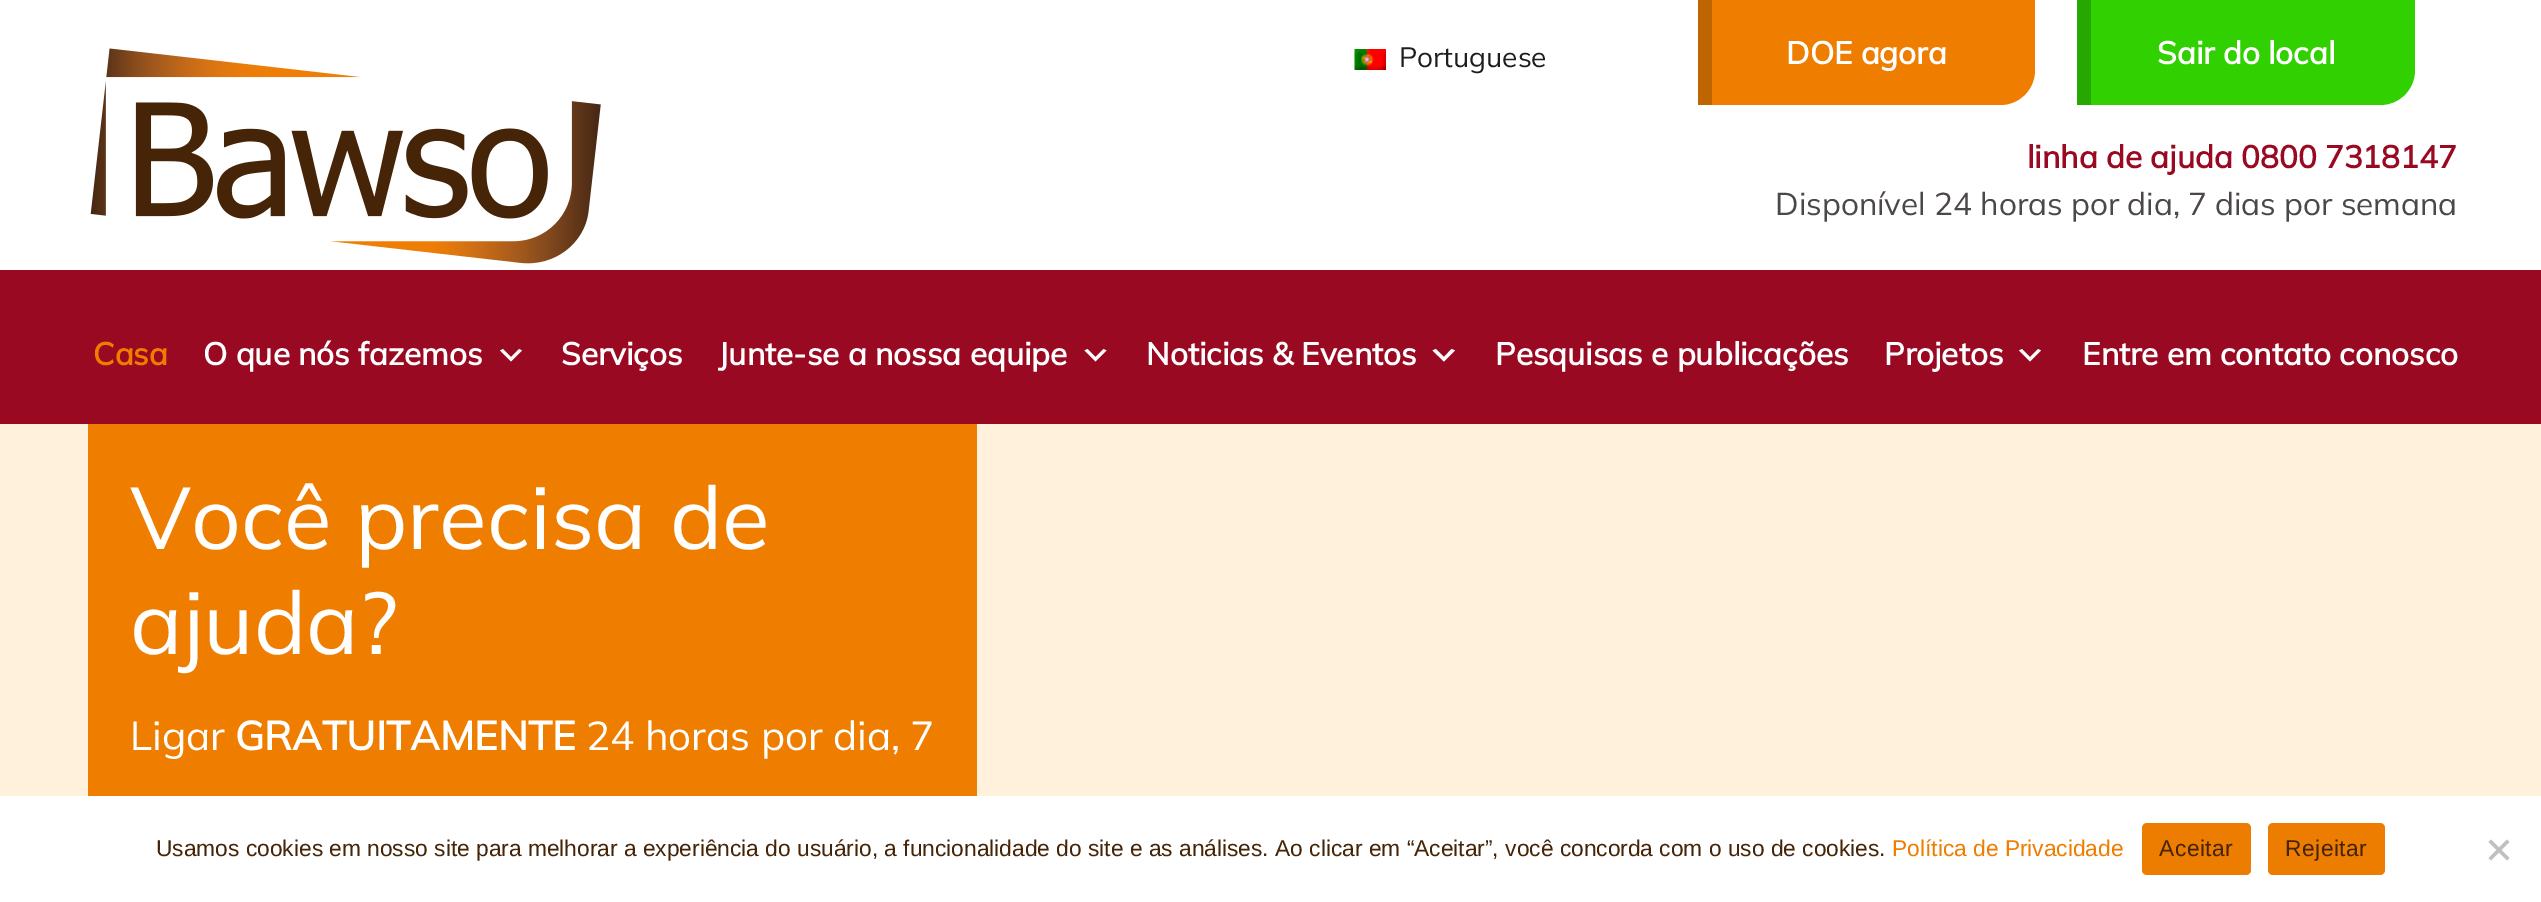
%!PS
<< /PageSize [2541 902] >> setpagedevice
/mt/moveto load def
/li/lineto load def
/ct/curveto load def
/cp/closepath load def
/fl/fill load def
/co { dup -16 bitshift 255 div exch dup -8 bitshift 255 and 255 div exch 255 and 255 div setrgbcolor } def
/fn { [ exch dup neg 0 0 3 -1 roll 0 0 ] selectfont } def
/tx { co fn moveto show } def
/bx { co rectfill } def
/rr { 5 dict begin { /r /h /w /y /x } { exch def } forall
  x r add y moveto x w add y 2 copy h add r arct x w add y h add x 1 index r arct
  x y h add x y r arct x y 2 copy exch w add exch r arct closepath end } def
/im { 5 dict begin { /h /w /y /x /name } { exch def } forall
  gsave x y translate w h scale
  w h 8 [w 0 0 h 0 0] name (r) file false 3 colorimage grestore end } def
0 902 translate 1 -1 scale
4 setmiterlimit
0 0 2541 902 16#FFF1DC bx
0 0 2541 270 16#FFFFFF bx
(media/1.raw) 90 48 511 216 im
(media/2.raw) 1354 49 32 21 im
16#EE7D00 co
1698 0 mt 2035 0 li 2035 70 li 2035 89.5 2019.5 105 2000 105 ct 1698 105 li cp fl
1698 0 14 105 16#BE6400 bx
16#31D101 co
2077 0 mt 2415 0 li 2415 70 li 2415 89.5 2399.5 105 2380 105 ct 2077 105 li cp fl
2077 0 14 105 16#27A701 bx
0 270 2541 154 16#990A22 bx
16#FFFFFF co
503 349 mt 511 357 li 519 349 li 522 350.5 li 511 361.5 li 500 350.5 li cp fl
1087.5 349 mt 1095.5 357 li 1103.5 349 li 1106.5 350.5 li 1095.5 361.5 li 1084.5 350.5 li cp fl
1436 349 mt 1444 357 li 1451.5 349 li 1455 350.5 li 1444 361.5 li 1432.5 350.5 li cp fl
2022 349 mt 2030 357 li 2038 349 li 2041 350.5 li 2030 361.5 li 2019 350.5 li cp fl
88 424 889 372 16#EE7D00 bx
0 796 2541 106 16#FFFFFF bx
16#ED7D00 co
2142 823 109 52 5 rr fl
2268 823 117 52 5 rr fl
16#C0C0C0 co
2507 839.5 mt 2509.5 842 li 2491 860.5 li 2488.5 858 li cp fl
2488.5 842 mt 2491 839.5 li 2509.5 858 li 2507 860.5 li cp fl
(Portuguese) 1399 67 /Mulish-ExtraLight 28 16#1E1E1E tx
(DOE agora) 1786 64 /Mulish-Bold 31.5 16#FFFFFF tx
(Sair do local) 2157 64 /Mulish-Bold 31.5 16#FFFFFF tx
(linha de ajuda 0800 7318147) 2027 168 /Mulish-Bold 31.5 16#990A22 tx
(Disponível 24 horas por dia, 7 dias por semana) 1775 215 /Mulish-ExtraLight 31.5 16#4C4847 tx
(Casa) 93 365 /Mulish-Bold 31.5 16#EE7D00 tx
(O que nós fazemos) 203 365 /Mulish-Bold 31.5 16#FFFFFF tx
(Serviços) 561 365 /Mulish-Bold 31.5 16#FFFFFF tx
(Junte-se a nossa equipe) 718 365 /Mulish-Bold 31.5 16#FFFFFF tx
(Noticias & Eventos) 1146 365 /Mulish-Bold 31.5 16#FFFFFF tx
(Pesquisas e publicações) 1495 365 /Mulish-Bold 31.5 16#FFFFFF tx
(Projetos) 1884 365 /Mulish-Bold 31.5 16#FFFFFF tx
(Entre em contato conosco) 2082 365 /Mulish-Bold 31.5 16#FFFFFF tx
(Você precisa de) 130 549 /Mulish-ExtraLight 87.5 16#FFFFFF tx
(ajuda?) 130 654 /Mulish-ExtraLight 87.5 16#FFFFFF tx
(Ligar) 130 750 /Mulish-ExtraLight 40.25 16#FFFFFF tx
(GRATUITAMENTE) 235 750 /Mulish-Bold 40.25 16#FFFFFF tx
(24 horas por dia, 7) 586 750 /Mulish-ExtraLight 40.25 16#FFFFFF tx
(Usamos cookies em nosso site para melhorar a experiência do usuário, a funcionalidade do site e as análises. Ao clicar em “Aceitar”, você concorda com o uso de cookies.) 156 856 /LiberationSans-Regular 22.75 16#452408 tx
(Política de Privacidade) 1892 856 /LiberationSans-Regular 22.75 16#EE7D00 tx
16#452408 co
2159 856 mt .5 0 (Aceitar) ashow
2285 856 mt .5 0 (Rejeitar) ashow
showpage
